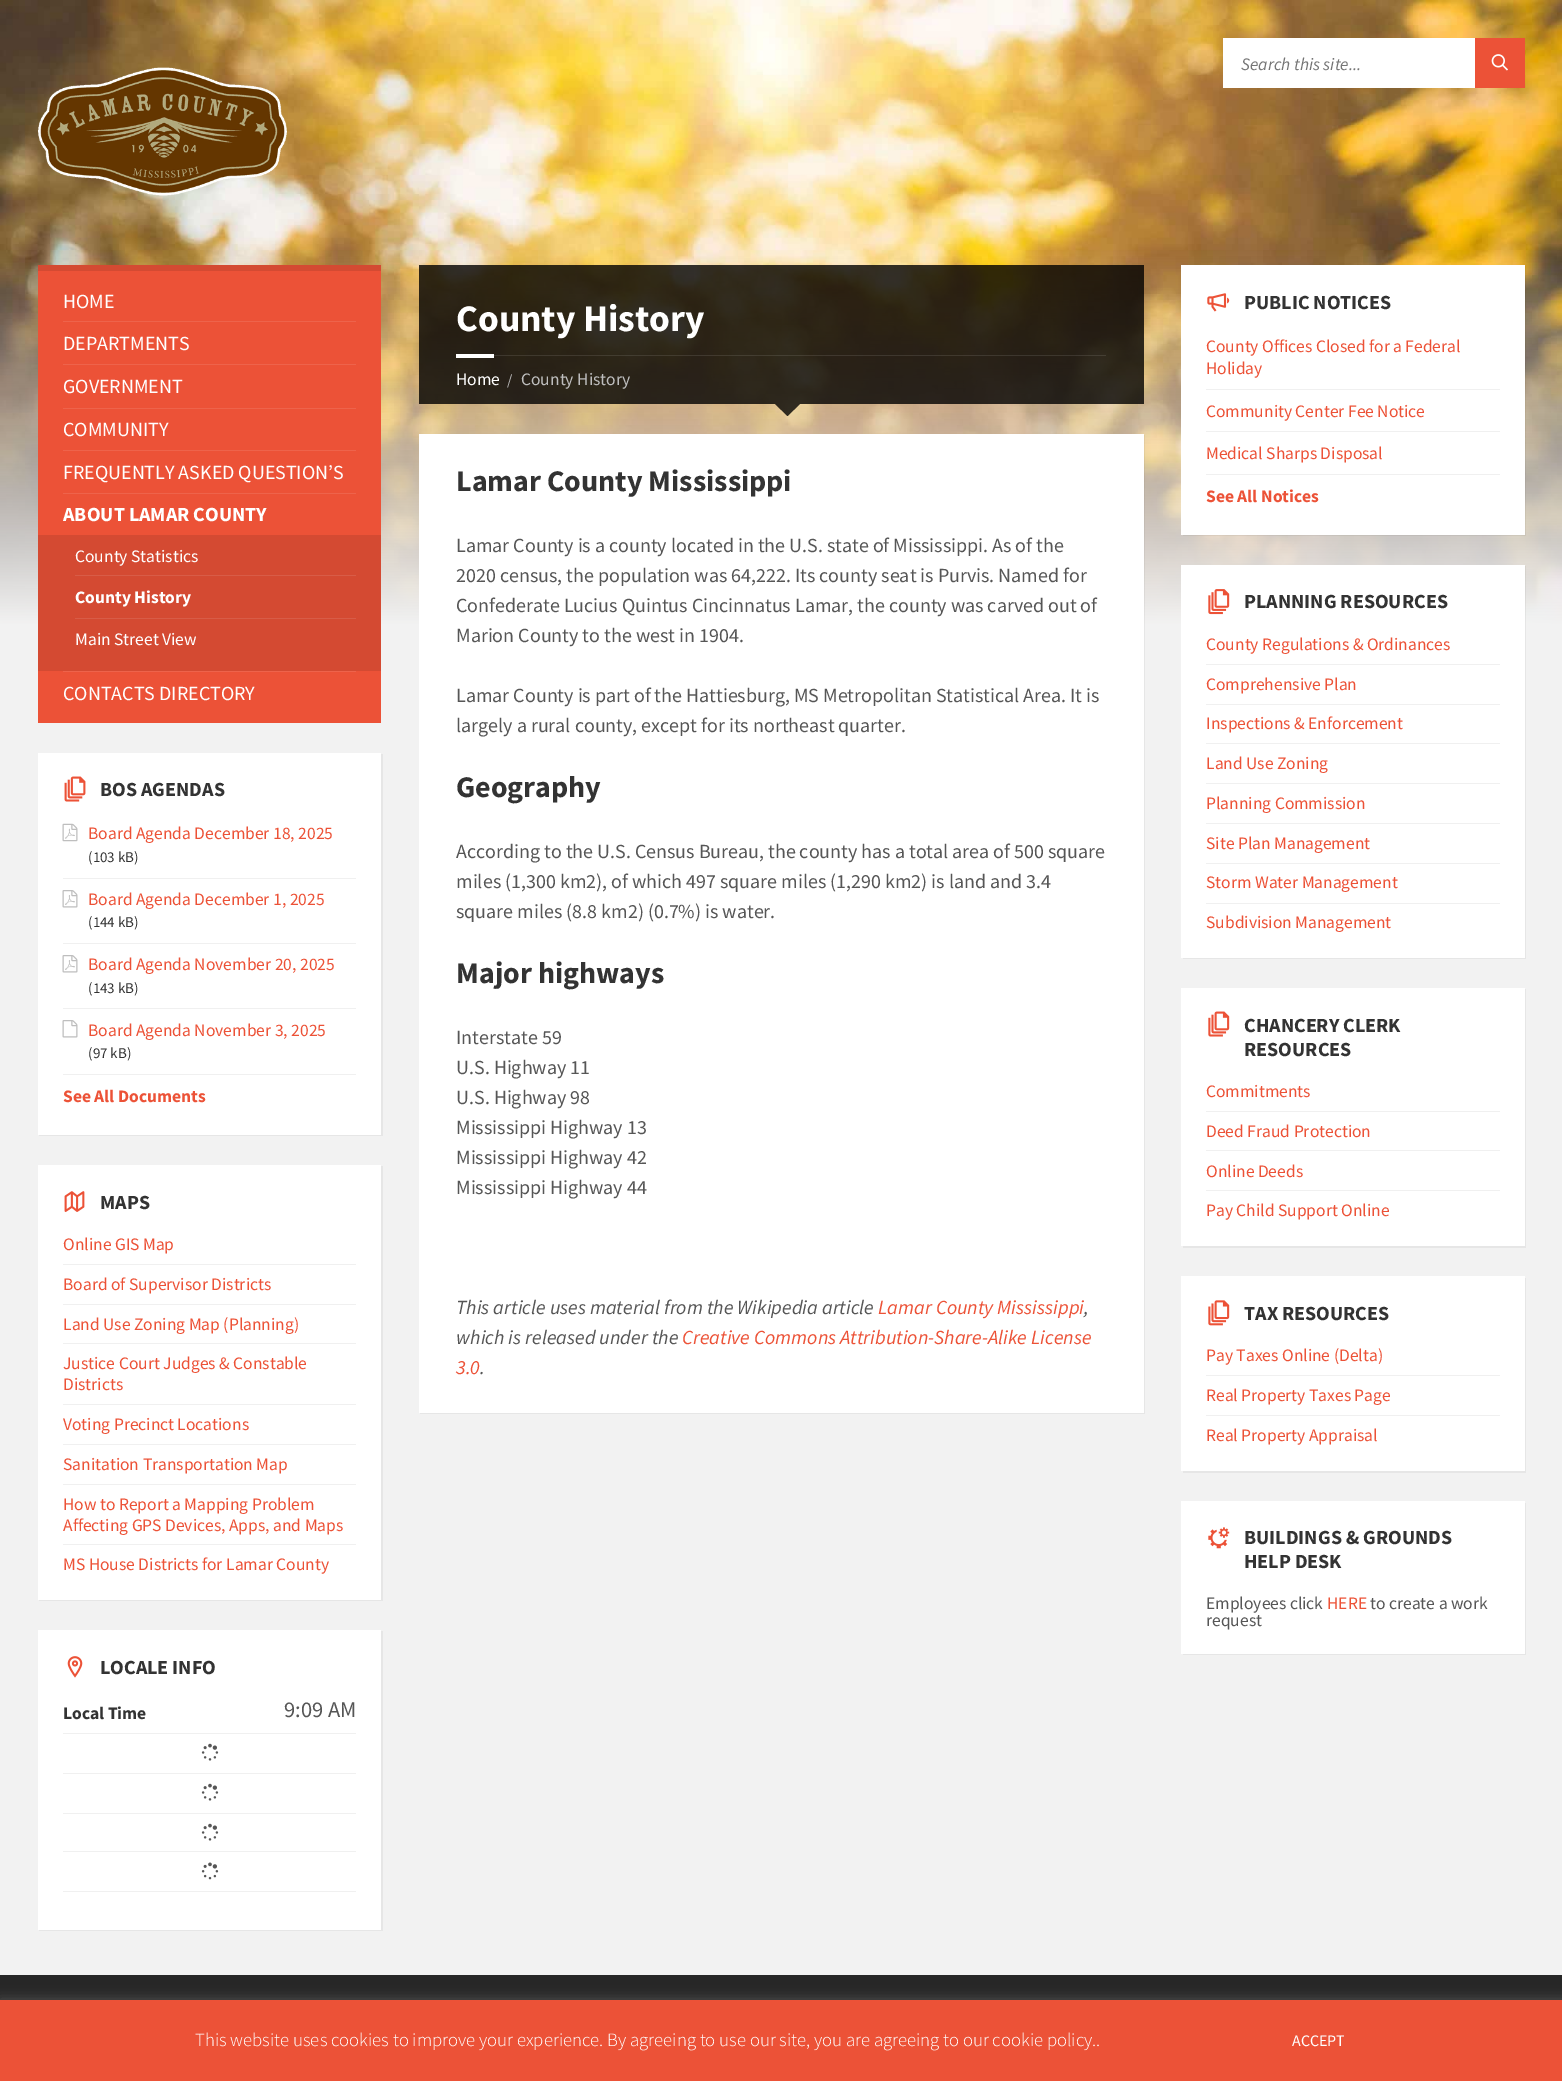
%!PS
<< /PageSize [1562 2081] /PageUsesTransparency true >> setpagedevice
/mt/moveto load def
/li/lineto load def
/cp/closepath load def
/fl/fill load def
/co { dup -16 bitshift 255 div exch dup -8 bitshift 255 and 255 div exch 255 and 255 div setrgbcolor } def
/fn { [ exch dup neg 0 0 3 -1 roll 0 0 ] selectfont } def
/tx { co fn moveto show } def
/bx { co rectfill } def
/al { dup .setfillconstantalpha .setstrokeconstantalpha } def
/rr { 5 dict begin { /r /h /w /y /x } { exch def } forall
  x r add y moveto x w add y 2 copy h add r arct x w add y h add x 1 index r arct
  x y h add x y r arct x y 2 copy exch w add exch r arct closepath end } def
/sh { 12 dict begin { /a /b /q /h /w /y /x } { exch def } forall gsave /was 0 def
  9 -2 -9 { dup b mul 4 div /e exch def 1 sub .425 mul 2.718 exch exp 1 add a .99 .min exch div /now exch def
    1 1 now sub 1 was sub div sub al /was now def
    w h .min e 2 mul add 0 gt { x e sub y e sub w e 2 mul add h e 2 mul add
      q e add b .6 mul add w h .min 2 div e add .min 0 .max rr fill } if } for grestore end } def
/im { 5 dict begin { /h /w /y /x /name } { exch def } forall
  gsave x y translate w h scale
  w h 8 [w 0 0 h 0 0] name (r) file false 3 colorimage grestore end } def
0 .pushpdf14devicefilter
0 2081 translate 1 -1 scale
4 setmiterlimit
0 0 1562 2081 16#F2F2F2 bx
(media/1.raw) 0 0 1562 625 im
1223 38 252 50 16#FFFFFF bx
1475 38 50 50 16#EC5237 bx
(media/2.raw) 1491 54 17 17 im
(media/3.raw) 38 67 249 129 im
38 271 343 452 16#EC5237 bx
38 265 343 6 16#D44A32 bx
63 321 293 1 16#EE634B bx
63 364 293 1 16#EE634B bx
63 408 293 1 16#EE634B bx
63 450 293 1 16#EE634B bx
63 493 293 1 16#EE634B bx
38 535 343 136 16#D44A32 bx
75 575 281 1 16#D85C47 bx
75 618 281 1 16#D85C47 bx
63 671 293 1 16#EE634B bx
16#E6E6E6 co
39 1135 mt 39 1136 li 383 1136 li 383 754 li 381 754 li 381 1135 li cp fl
38 753 343 382 16#FFFFFF bx
(media/4.raw) 64 776 22 26 im
(media/5.raw) 62 823 16 19 im
63 878 293 1 16#F0F0F0 bx
(media/6.raw) 62 890 16 18 im
63 943 293 1 16#F0F0F0 bx
(media/6.raw) 62 955 16 18 im
63 1008 293 1 16#F0F0F0 bx
(media/7.raw) 62 1020 16 18 im
63 1074 293 1 16#F0F0F0 bx
16#E6E6E6 co
39 1600 mt 39 1601 li 383 1601 li 383 1166 li 381 1166 li 381 1600 li cp fl
38 1165 343 435 16#FFFFFF bx
(media/8.raw) 64 1191 21 21 im
63 1264 293 1 16#F0F0F0 bx
63 1304 293 1 16#F0F0F0 bx
63 1343 293 1 16#F0F0F0 bx
63 1404 293 1 16#F0F0F0 bx
63 1444 293 1 16#F0F0F0 bx
63 1484 293 1 16#F0F0F0 bx
63 1544 293 1 16#F0F0F0 bx
16#E6E6E6 co
39 1930 mt 39 1931 li 383 1931 li 383 1631 li 381 1631 li 381 1930 li cp fl
38 1630 343 300 16#FFFFFF bx
(media/9.raw) 67 1656 16 22 im
63 1733 293 1 16#F0F0F0 bx
(media/10.raw) 201 1743 18 18 im
63 1773 293 1 16#F0F0F0 bx
(media/10.raw) 201 1783 18 18 im
63 1813 293 1 16#F0F0F0 bx
(media/10.raw) 201 1823 18 18 im
63 1851 293 1 16#F0F0F0 bx
(media/11.raw) 201 1862 18 18 im
63 1891 293 1 16#F0F0F0 bx
0.8 al
419 265 725 139 16#000000 bx
0.1 al
494 355 612 1 16#FFFFFF bx
1 al
456 354 38 4 16#FFFFFF bx
0.8 al
16#000000 co
775 404 mt 800 404 li 787.5 416 li cp fl
0.05 al
420 1412 mt 420 1414 li 1145 1414 li 1145 435 li 1144 435 li 1144 1412 li cp fl
1 al
419 434 725 979 16#FFFFFF bx
0.05 al
16#000000 co
1183 535 mt 1183 536 li 1526 536 li 1526 266 li 1525 266 li 1525 535 li cp fl
1 al
1181 265 344 270 16#FFFFFF bx
(media/12.raw) 1207 293 23 19 im
1206 389 294 1 16#F0F0F0 bx
1206 431 294 1 16#F0F0F0 bx
1206 474 294 1 16#F0F0F0 bx
0.05 al
16#000000 co
1183 958 mt 1183 959 li 1526 959 li 1526 566 li 1525 566 li 1525 958 li cp fl
1 al
1181 565 344 393 16#FFFFFF bx
(media/13.raw) 1208 589 22 26 im
1206 664 294 1 16#F0F0F0 bx
1206 704 294 1 16#F0F0F0 bx
1206 743 294 1 16#F0F0F0 bx
1206 783 294 1 16#F0F0F0 bx
1206 823 294 1 16#F0F0F0 bx
1206 863 294 1 16#F0F0F0 bx
1206 903 294 1 16#F0F0F0 bx
16#E6E6E6 co
1183 1246 mt 1183 1248 li 1526 1248 li 1526 989 li 1525 989 li 1525 1246 li cp fl
1181 988 344 258 16#FFFFFF bx
(media/14.raw) 1208 1011 22 26 im
1206 1111 294 1 16#F0F0F0 bx
1206 1150 294 1 16#F0F0F0 bx
1206 1190 294 1 16#F0F0F0 bx
16#E6E6E6 co
1183 1471 mt 1183 1473 li 1526 1473 li 1526 1278 li 1525 1278 li 1525 1471 li cp fl
1181 1276 344 195 16#FFFFFF bx
(media/15.raw) 1208 1300 22 26 im
1206 1375 294 1 16#F0F0F0 bx
1206 1415 294 1 16#F0F0F0 bx
16#E6E6E6 co
1183 1654 mt 1183 1655 li 1526 1655 li 1526 1503 li 1525 1503 li 1525 1654 li cp fl
1181 1501 344 153 16#FFFFFF bx
(media/16.raw) 1208 1527 22 22 im
0 1975 1562 25 16#272727 bx
16#ACABAB co
0 1999 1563 81 0 6 .3 sh
0 2000 1562 81 16#EC5237 bx
(Search this site...) 1241 70 /SourceSansPro-Italic 17.5 16#757575 tx
(HOME) 63 308 /SourceSansPro-Regular 20 16#FFFFFF tx
(DEPARTMENTS) 63 350 /SourceSansPro-Regular 20 16#FFFFFF tx
(GOVERNMENT) 63 393 /SourceSansPro-Regular 20 16#FFFFFF tx
(COMMUNITY) 63 436 /SourceSansPro-Regular 20 16#FFFFFF tx
(FREQUENTLY ASKED QUESTION’S) 63 479 /SourceSansPro-Regular 20 16#FFFFFF tx
(ABOUT LAMAR COUNTY) 63 521 /SourceSansPro-Bold 20 16#FFFFFF tx
(County Statistics) 75 562 /SourceSansPro-Regular 17.5 16#FFFFFF tx
(County History) 75 603 /SourceSansPro-Bold 17.5 16#FFFFFF tx
(Main Street View) 75 645 /SourceSansPro-Regular 17.5 16#FFFFFF tx
(CONTACTS DIRECTORY) 63 700 /SourceSansPro-Regular 20 16#FFFFFF tx
(BOS AGENDAS) 100 796 /SourceSansPro-Bold 20 16#333333 tx
(Board Agenda December 18, 2025) 88 839 /SourceSansPro-Regular 17.5 16#EC5237 tx
(\(103 kB\)) 88 862 /SourceSansPro-Regular 15 16#333333 tx
(Board Agenda December 1, 2025) 88 905 /SourceSansPro-Regular 17.5 16#EC5237 tx
(\(144 kB\)) 88 927 /SourceSansPro-Regular 15 16#333333 tx
(Board Agenda November 20, 2025) 88 970 /SourceSansPro-Regular 17.5 16#EC5237 tx
(\(143 kB\)) 88 993 /SourceSansPro-Regular 15 16#333333 tx
(Board Agenda November 3, 2025) 88 1036 /SourceSansPro-Regular 17.5 16#EC5237 tx
(\(97 kB\)) 88 1058 /SourceSansPro-Regular 15 16#333333 tx
(See All Documents) 63 1102 /SourceSansPro-Bold 17.5 16#EC5237 tx
(MAPS) 100 1209 /SourceSansPro-Bold 20 16#333333 tx
(Online GIS Map) 63 1250 /SourceSansPro-Regular 17.5 16#EC5237 tx
(Board of Supervisor Districts) 63 1290 /SourceSansPro-Regular 17.5 16#EC5237 tx
(Land Use Zoning Map \(Planning\)) 63 1330 /SourceSansPro-Regular 17.5 16#EC5237 tx
(Justice Court Judges & Constable) 63 1369 /SourceSansPro-Regular 17.5 16#EC5237 tx
(Districts) 63 1390 /SourceSansPro-Regular 17.5 16#EC5237 tx
(Voting Precinct Locations) 63 1430 /SourceSansPro-Regular 17.5 16#EC5237 tx
(Sanitation Transportation Map) 63 1470 /SourceSansPro-Regular 17.5 16#EC5237 tx
(How to Report a Mapping Problem) 63 1510 /SourceSansPro-Regular 17.5 16#EC5237 tx
(Affecting GPS Devices, Apps, and Maps) 63 1531 /SourceSansPro-Regular 17.5 16#EC5237 tx
(MS House Districts for Lamar County) 63 1570 /SourceSansPro-Regular 17.5 16#EC5237 tx
(LOCALE INFO) 100 1674 /SourceSansPro-Bold 20 16#333333 tx
(Local Time) 63 1719 /SourceSansPro-Bold 17.5 16#333333 tx
(9:09 AM) 284 1717 /SourceSansPro-Regular 22.5 16#565656 tx
(County History) 456 331 /SourceSansPro-Bold 37.5 16#FFFFFF tx
(Home) 456 385 /SourceSansPro-Regular 17.5 16#FFFFFF tx
(/) 507 385 /SourceSansPro-Regular 15 16#BEBEBE tx
(County History) 521 385 /SourceSansPro-Regular 17.5 16#BEBEBE tx
(Lamar County Mississippi) 456 491 /SourceSansPro-Bold 30 16#333333 tx
(Lamar County is a county located in the U.S. state of Mississippi. As of the) 456 552 /SourceSansPro-Regular 20 16#565656 tx
(2020 census, the population was 64,222. Its county seat is Purvis. Named for) 456 582 /SourceSansPro-Regular 20 16#565656 tx
(Confederate Lucius Quintus Cincinnatus Lamar, the county was carved out of) 456 612 /SourceSansPro-Regular 20 16#565656 tx
(Marion County to the west in 1904.) 456 642 /SourceSansPro-Regular 20 16#565656 tx
(Lamar County is part of the Hattiesburg, MS Metropolitan Statistical Area. It is) 456 702 /SourceSansPro-Regular 20 16#565656 tx
(largely a rural county, except for its northeast quarter.) 456 732 /SourceSansPro-Regular 20 16#565656 tx
(Geography) 456 797 /SourceSansPro-Bold 30 16#333333 tx
(According to the U.S. Census Bureau, the county has a total area of 500 square) 456 858 /SourceSansPro-Regular 20 16#565656 tx
(miles \(1,300 km2\), of which 497 square miles \(1,290 km2\) is land and 3.4) 456 888 /SourceSansPro-Regular 20 16#565656 tx
(square miles \(8.8 km2\) \(0.7%\) is water.) 456 918 /SourceSansPro-Regular 20 16#565656 tx
(Major highways) 456 983 /SourceSansPro-Bold 30 16#333333 tx
(Interstate 59) 456 1044 /SourceSansPro-Regular 20 16#565656 tx
(U.S. Highway 11) 456 1074 /SourceSansPro-Regular 20 16#565656 tx
(U.S. Highway 98) 456 1104 /SourceSansPro-Regular 20 16#565656 tx
(Mississippi Highway 13) 456 1134 /SourceSansPro-Regular 20 16#565656 tx
(Mississippi Highway 42) 456 1164 /SourceSansPro-Regular 20 16#565656 tx
(Mississippi Highway 44) 456 1194 /SourceSansPro-Regular 20 16#565656 tx
(This article uses material from the Wikipedia article) 456 1314 /SourceSansPro-Italic 20 16#565656 tx
(Lamar County Mississippi) 878 1314 /SourceSansPro-Italic 20 16#EC5237 tx
(,) 1084 1314 /SourceSansPro-Italic 20 16#565656 tx
(which is released under the) 456 1344 /SourceSansPro-Italic 20 16#565656 tx
(Creative Commons Attribution-Share-Alike License) 682 1344 /SourceSansPro-Italic 20 16#EC5237 tx
(3.0) 456 1374 /SourceSansPro-Italic 20 16#EC5237 tx
(.) 480 1374 /SourceSansPro-Italic 20 16#565656 tx
(PUBLIC NOTICES) 1244 309 /SourceSansPro-Bold 20 16#333333 tx
(County Offices Closed for a Federal) 1206 352 /SourceSansPro-Regular 17.5 16#EC5237 tx
(Holiday) 1206 374 /SourceSansPro-Regular 17.5 16#EC5237 tx
(Community Center Fee Notice) 1206 417 /SourceSansPro-Regular 17.5 16#EC5237 tx
(Medical Sharps Disposal) 1206 459 /SourceSansPro-Regular 17.5 16#EC5237 tx
(See All Notices) 1206 502 /SourceSansPro-Bold 17.5 16#EC5237 tx
(PLANNING RESOURCES) 1244 608 /SourceSansPro-Bold 20 16#333333 tx
(County Regulations & Ordinances) 1206 650 /SourceSansPro-Regular 17.5 16#EC5237 tx
(Comprehensive Plan) 1206 690 /SourceSansPro-Regular 17.5 16#EC5237 tx
(Inspections & Enforcement) 1206 729 /SourceSansPro-Regular 17.5 16#EC5237 tx
(Land Use Zoning) 1206 769 /SourceSansPro-Regular 17.5 16#EC5237 tx
(Planning Commission) 1206 809 /SourceSansPro-Regular 17.5 16#EC5237 tx
(Site Plan Management) 1206 849 /SourceSansPro-Regular 17.5 16#EC5237 tx
(Storm Water Management) 1206 888 /SourceSansPro-Regular 17.5 16#EC5237 tx
(Subdivision Management) 1206 928 /SourceSansPro-Regular 17.5 16#EC5237 tx
(CHANCERY CLERK) 1244 1032 /SourceSansPro-Bold 20 16#333333 tx
(RESOURCES) 1244 1056 /SourceSansPro-Bold 20 16#333333 tx
(Commitments) 1206 1097 /SourceSansPro-Regular 17.5 16#EC5237 tx
(Deed Fraud Protection) 1206 1137 /SourceSansPro-Regular 17.5 16#EC5237 tx
(Online Deeds) 1206 1177 /SourceSansPro-Regular 17.5 16#EC5237 tx
(Pay Child Support Online) 1206 1216 /SourceSansPro-Regular 17.5 16#EC5237 tx
(TAX RESOURCES) 1244 1320 /SourceSansPro-Bold 20 16#333333 tx
(Pay Taxes Online \(Delta\)) 1206 1361 /SourceSansPro-Regular 17.5 16#EC5237 tx
(Real Property Taxes Page) 1206 1401 /SourceSansPro-Regular 17.5 16#EC5237 tx
(Real Property Appraisal) 1206 1441 /SourceSansPro-Regular 17.5 16#EC5237 tx
(BUILDINGS & GROUNDS) 1244 1544 /SourceSansPro-Bold 20 16#333333 tx
(HELP DESK) 1244 1568 /SourceSansPro-Bold 20 16#333333 tx
(Employees click) 1206 1609 /SourceSansPro-Regular 17.5 16#565656 tx
(HERE) 1327 1609 /SourceSansPro-Regular 17.5 16#EC5237 tx
(to create a work) 1370 1609 /SourceSansPro-Regular 17.5 16#565656 tx
(request) 1206 1626 /SourceSansPro-Regular 17.5 16#565656 tx
(This website uses cookies to improve your experience. By agreeing to use our site, you are agreeing to our cookie policy..) 195 2046 /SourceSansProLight-Light 18.75 16#FFFFFF tx
(ACCEPT) 1292 2046 /SourceSansPro-Regular 16 16#FFFFFF tx
.poppdf14devicefilter showpage
